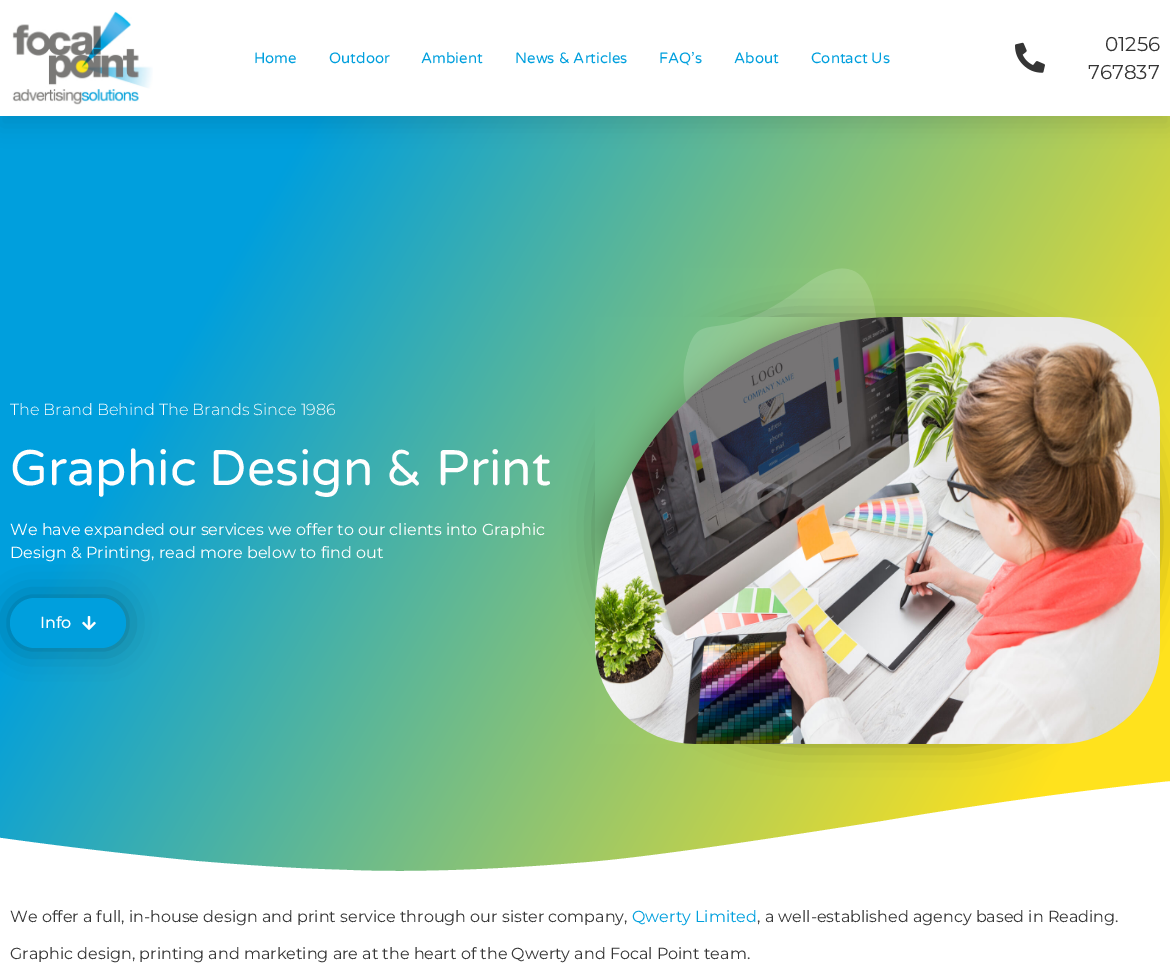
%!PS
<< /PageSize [1170 973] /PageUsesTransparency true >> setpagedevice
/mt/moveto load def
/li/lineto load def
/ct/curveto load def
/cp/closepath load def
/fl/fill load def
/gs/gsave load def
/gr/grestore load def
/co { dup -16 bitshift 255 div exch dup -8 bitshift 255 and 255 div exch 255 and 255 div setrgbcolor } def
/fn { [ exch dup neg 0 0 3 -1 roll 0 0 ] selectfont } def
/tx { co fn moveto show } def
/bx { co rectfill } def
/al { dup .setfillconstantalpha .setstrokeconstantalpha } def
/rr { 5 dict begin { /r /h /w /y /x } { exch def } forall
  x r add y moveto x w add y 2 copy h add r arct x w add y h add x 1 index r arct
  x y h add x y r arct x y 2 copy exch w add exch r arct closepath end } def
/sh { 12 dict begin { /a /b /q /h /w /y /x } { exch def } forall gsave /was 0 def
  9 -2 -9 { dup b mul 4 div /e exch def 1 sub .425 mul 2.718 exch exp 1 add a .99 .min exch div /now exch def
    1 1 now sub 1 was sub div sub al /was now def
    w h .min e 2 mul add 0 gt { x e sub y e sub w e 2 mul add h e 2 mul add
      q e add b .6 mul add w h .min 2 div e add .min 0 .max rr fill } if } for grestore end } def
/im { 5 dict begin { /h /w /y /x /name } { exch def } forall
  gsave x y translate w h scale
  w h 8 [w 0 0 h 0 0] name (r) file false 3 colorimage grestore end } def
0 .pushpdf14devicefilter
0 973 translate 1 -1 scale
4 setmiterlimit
0 0 1170 973 16#FFFFFF bx
gs 0 116 mt 1170 116 li 1170 871 li 0 871 li cp clip newpath
<< /ShadingType 2 /ColorSpace /DeviceRGB /Coords [-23 135 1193 837] /Extend [true true] /Function << /FunctionType 3 /Domain [0 1] /Functions [<< /FunctionType 2 /Domain [0 1] /C0 [0 .624 .867] /C1 [0 .624 .867] /N 1 >> << /FunctionType 2 /Domain [0 1] /C0 [0 .624 .867] /C1 [1 .886 .114] /N 1 >> << /FunctionType 2 /Domain [0 1] /C0 [1 .886 .114] /C1 [1 .886 .114] /N 1 >>] /Bounds [.2 .89] /Encode [0 1 0 1 0 1] >> >> shfill gr
16#000000 co
0 10 1170 116 0 10 .1 sh
0 0 1170 116 16#FFFFFF bx
(media/1.raw) 12 11 141 94 im
(media/2.raw) 1015 42 30 31 im
(media/3.raw) 683 268 193 134 im
16#000000 co
10 598 116 50 25 15 .32 sh
16#009FDD co
10 598 116 50 25 rr fl
(media/4.raw) 82 616 14 14 im
gs
0 757 1170 120 rectclip
16#FFFFFF co
347 870 mt 416 873 504 869 577 863 ct 649 858 793 835 883 821 ct 1114 782 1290 767 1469 761 ct 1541 758 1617 757 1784 764 ct 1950 771 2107 795 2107 795 ct 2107 878 li -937 878 li -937 841 li -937 841 -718 802 -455 805 ct -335 805 -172 813 -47 831 ct 18 841 112 853 196 861 ct 279 868 316 869 347 870 ct cp fl
gr
16#000000 co
595 317 565 427 300 15 .27 sh
(media/5.raw) 595 317 565 427 im
(Home) 254 63 /VarelaRound-Regular 15 16#009FDD tx
(Outdoor) 329 63 /VarelaRound-Regular 15 16#009FDD tx
(Ambient) 421 63 /VarelaRound-Regular 15 16#009FDD tx
(News & Articles) 515 63 /VarelaRound-Regular 15 16#009FDD tx
(FAQ’s) 659 63 /VarelaRound-Regular 15 16#009FDD tx
(About) 734 63 /VarelaRound-Regular 15 16#009FDD tx
(Contact Us) 811 63 /VarelaRound-Regular 15 16#009FDD tx
(01256) 1105 51 /Montserrat-Regular 20 16#353535 tx
(767837) 1088 79 /Montserrat-Regular 20 16#353535 tx
(The Brand Behind The Brands Since 1986) 10 415 /Montserrat-Light 16 16#FFFEFE tx
(Graphic Design & Print) 10 485 /VarelaRound-Regular 50 16#FFFEFE tx
(We have expanded our services we offer to our clients into Graphic) 10 535 /Montserrat-Regular 16 16#FFFEFE tx
(Design & Printing, read more below to find out) 10 558 /Montserrat-Regular 16 16#FFFEFE tx
(Info) 40 628 /Montserrat-Medium 16 16#FFFEFE tx
(We offer a full, in-house design and print service through our sister company,) 10 922 /Montserrat-Regular 16 16#353535 tx
(Qwerty Limited) 632 922 /Montserrat-Regular 16 16#009FDD tx
(, a well-established agency based in Reading.) 757 922 /Montserrat-Regular 16 16#353535 tx
(Graphic design, printing and marketing are at the heart of the Qwerty and Focal Point team.) 10 959 /Montserrat-Regular 16 16#353535 tx
.poppdf14devicefilter showpage
